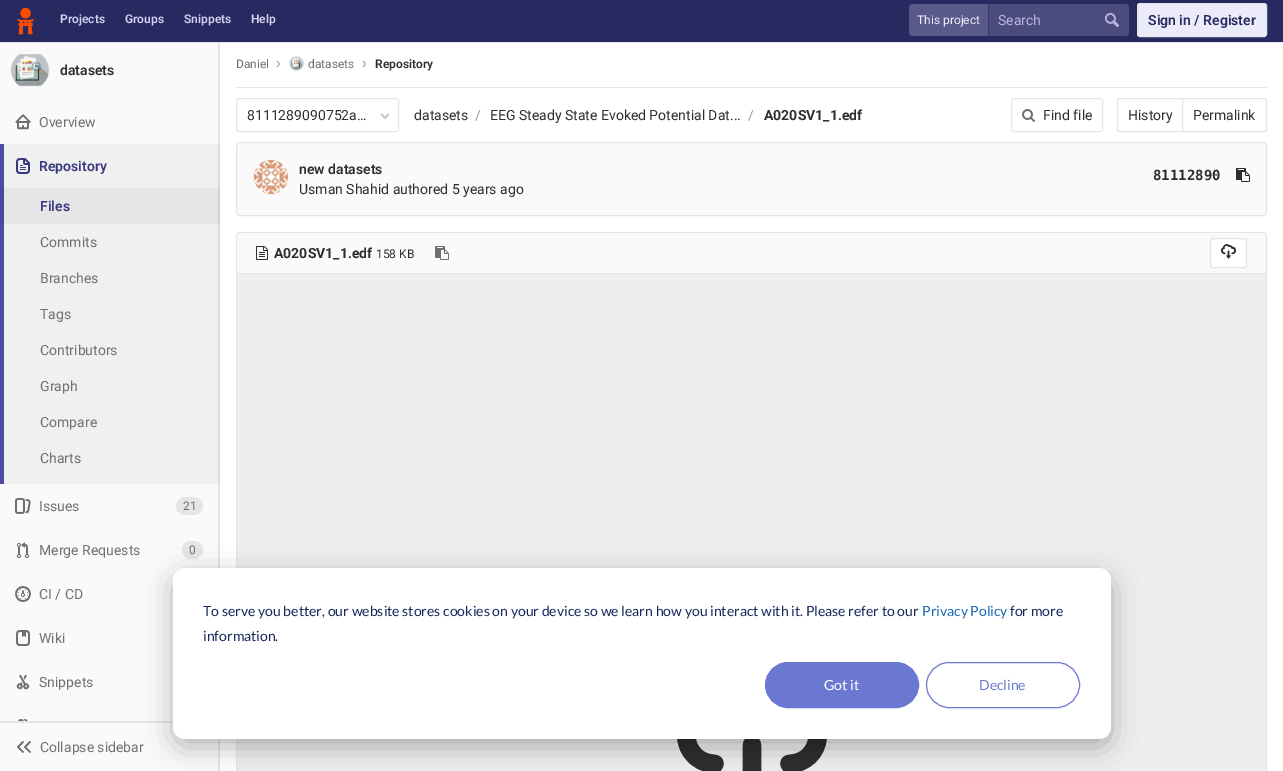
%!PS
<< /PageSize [1283 771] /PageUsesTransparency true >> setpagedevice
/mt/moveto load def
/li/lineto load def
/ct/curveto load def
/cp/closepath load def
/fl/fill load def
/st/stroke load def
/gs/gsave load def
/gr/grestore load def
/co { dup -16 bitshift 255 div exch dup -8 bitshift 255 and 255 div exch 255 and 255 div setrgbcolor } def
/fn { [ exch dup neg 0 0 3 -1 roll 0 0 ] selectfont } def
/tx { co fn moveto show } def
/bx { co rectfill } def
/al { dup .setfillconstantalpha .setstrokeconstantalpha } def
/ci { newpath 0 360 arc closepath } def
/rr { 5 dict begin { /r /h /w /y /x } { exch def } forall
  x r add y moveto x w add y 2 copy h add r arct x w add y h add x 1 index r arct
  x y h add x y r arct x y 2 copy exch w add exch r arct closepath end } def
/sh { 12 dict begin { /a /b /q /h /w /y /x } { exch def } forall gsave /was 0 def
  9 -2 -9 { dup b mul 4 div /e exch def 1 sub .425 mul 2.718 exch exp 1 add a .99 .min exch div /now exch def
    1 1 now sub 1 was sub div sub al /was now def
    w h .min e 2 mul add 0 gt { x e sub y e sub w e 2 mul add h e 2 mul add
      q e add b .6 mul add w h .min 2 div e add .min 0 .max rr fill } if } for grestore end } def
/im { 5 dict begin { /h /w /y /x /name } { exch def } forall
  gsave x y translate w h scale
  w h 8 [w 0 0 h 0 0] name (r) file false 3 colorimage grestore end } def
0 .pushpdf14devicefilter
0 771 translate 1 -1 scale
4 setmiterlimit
0 0 1283 771 16#FFFFFF bx
218 40 2 731 16#E5E5E5 bx
0 0 1283 42 16#292961 bx
0 42 1283 1 16#E5E5E5 bx
(media/1.raw) 17 7 17 28 im
16#4B4B7E co
909 4 220 32 4 rr fl
0.1 al
16#D1D1F0 co
913 4 mt 989 4 li 989 36 li 913 36 li 911 36 909 34 909 32 ct 909 8 li 909 6 911 4 913 4 ct cp fl
1 al
988 4 1 32 16#393982 bx
(media/2.raw) 1104 12 15 15 im
16#EBEBFA co
1137.5 3.5 129 33 2.5 rr gs fl gr
16#E5E5E5 co
st
0 43 218 678 16#FAFAFA bx
4 144 214 340 16#F0F0F0 bx
4 188 214 36 16#E6E6E6 bx
218 144 2 340 16#DCDCDC bx
218 188 2 36 16#D3D3D3 bx
16#FFFFFF co
30 70 19.5 ci gs fl gr
16#F5F5F5 co
st
(media/3.raw) 11 53 38 34 im
(media/4.raw) 15 114 16 16 im
0 144 4 340 16#4B4BA3 bx
0 188 4 36 16#48489C bx
(media/5.raw) 16 158 14 16 im
(media/6.raw) 15 498 16 16 im
16#E6E6E6 co
176 497 27 18 9 rr fl
(media/7.raw) 16 542 14 16 im
182 541 21 18 9 rr fl
(media/8.raw) 15 586 16 16 im
(media/9.raw) 16 630 14 16 im
(media/10.raw) 16 674 14 16 im
(media/11.raw) 18 719 10 2 im
0 723 218 48 16#FAFAFA bx
0 721 173 2 16#E5E5E5 bx
(media/12.raw) 17 741 14 12 im
236 87 1031 1 16#E5E5E5 bx
(media/13.raw) 276 60 5 8 im
296.5 63.5 7 ci st
(media/14.raw) 290 57 13 13 im
(media/13.raw) 362 60 5 8 im
236.5 98.5 162 33 2.5 rr st
(media/15.raw) 380 113 10 6 im
1011.5 98.5 91 33 2.5 rr st
(media/16.raw) 1022 109 13 13 im
1120 98.5 mt 1182.5 98.5 li 1182.5 131.5 li 1120 131.5 li 1118.5 131.5 1117.5 130.5 1117.5 129 ct 1117.5 101 li 1117.5 99.5 1118.5 98.5 1120 98.5 ct cp st
16#FFFFFF co
1182.5 98.5 mt 1264 98.5 li 1265.5 98.5 1266.5 99.5 1266.5 101 ct 1266.5 129 li 1266.5 130.5 1265.5 131.5 1264 131.5 ct 1182.5 131.5 li cp gs fl gr
16#E5E5E5 co
st
16#FAFAFA co
236.5 142.5 1030 73 3.5 rr gs fl gr
16#E5E5E5 co
st
16#F5F5F5 co
271 177 17.5 ci st
(media/17.raw) 254 160 34 34 im
(media/18.raw) 1236 168 14 14 im
16#E5E5E5 co
236.5 232.5 1030 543 3.5 rr st
16#FAFAFA co
241 233 mt 1262 233 li 1264 233 1266 235 1266 237 ct 1266 274 li 237 274 li 237 237 li 237 235 239 233 241 233 ct cp fl
237 273 1029 1 16#E5E5E5 bx
(media/19.raw) 256 246 12 14 im
(media/20.raw) 435 246 14 14 im
16#FFFFFF co
1210.5 238.5 36 29 2.5 rr gs fl gr
16#E5E5E5 co
st
(media/21.raw) 1221 244 15 15 im
237 274 1029 497 16#EEEEEE bx
(media/22.raw) 677 739 150 32 im
16#000000 co
173 576 938 171 12 14 .28 sh
16#FFFFFF co
173 568 938 171 12 rr fl
16#6A78D1 co
765.5 662.5 153 45 22.5 rr gs fl gr
st
926.5 662.5 153 45 22.5 rr st
(Projects) 60 23 /Roboto-SemiBold 12 16#D1D1F0 tx
(Groups) 125 23 /Roboto-SemiBold 12 16#D1D1F0 tx
(Snippets) 184 23 /Roboto-SemiBold 12 16#D1D1F0 tx
(Help) 251 23 /Roboto-SemiBold 12 16#D1D1F0 tx
(This project) 917 24 /Roboto-Regular 12 16#EBEBFA tx
(Search) 998 25 /Roboto-Regular 14 16#B6B6D9 tx
(Sign in / Register) 1148 25 /Roboto-SemiBold 14 16#292961 tx
(datasets) 60 75 /Roboto-SemiBold 14 16#2E2E2E tx
(Overview) 39 127 /Roboto-Regular 14 16#707070 tx
(Repository) 39 171 /Roboto-SemiBold 14 16#393982 tx
(Files) 40 211 /Roboto-SemiBold 14 16#393982 tx
(Commits) 40 247 /Roboto-Regular 14 16#707070 tx
(Branches) 40 283 /Roboto-Regular 14 16#707070 tx
(Tags) 40 319 /Roboto-Regular 14 16#707070 tx
(Contributors) 40 355 /Roboto-Regular 14 16#707070 tx
(Graph) 40 391 /Roboto-Regular 14 16#707070 tx
(Compare) 40 427 /Roboto-Regular 14 16#707070 tx
(Charts) 40 463 /Roboto-Regular 14 16#707070 tx
(Issues) 39 511 /Roboto-Regular 14 16#707070 tx
(21) 183 510 /Roboto-Regular 12 16#707070 tx
(Merge Requests) 39 555 /Roboto-Regular 14 16#707070 tx
(0) 189 554 /Roboto-Regular 12 16#707070 tx
(CI / CD) 39 599 /Roboto-Regular 14 16#707070 tx
(Wiki) 39 643 /Roboto-Regular 14 16#707070 tx
(Snippets) 39 687 /Roboto-Regular 14 16#707070 tx
(Collapse sidebar) 40 752 /Roboto-Regular 14 16#707070 tx
(Daniel) 236 68 /Roboto-Regular 12 16#707070 tx
(datasets) 308 68 /Roboto-Regular 12 16#707070 tx
(Repository) 375 68 /Roboto-SemiBold 12 16#2E2E2E tx
(8111289090752a…) 247 120 /Roboto-Regular 14 16#2E2E2E tx
(datasets) 414 120 /Roboto-Regular 14 16#2E2E2E tx
(/) 475 120 /Roboto-Regular 14 16#999999 tx
(EEG Steady State Evoked Potential Dat...) 490 120 /Roboto-Regular 14 16#2E2E2E tx
(/) 748 120 /Roboto-Regular 14 16#999999 tx
(A020SV1_1.edf) 764 120 /Roboto-Bold 14 16#2E2E2E tx
(Find file) 1043 120 /Roboto-Regular 14 16#2E2E2E tx
(History) 1128 120 /Roboto-Regular 14 16#2E2E2E tx
(Permalink) 1193 120 /Roboto-Regular 14 16#2E2E2E tx
(new datasets) 299 174 /Roboto-SemiBold 14 16#2E2E2E tx
(Usman Shahid authored 5 years ago) 299 194 /Roboto-Regular 14 16#2E2E2E tx
(81112890) 1153 180 /DejaVuSansMono-Bold 14 16#2E2E2E tx
(A020SV1_1.edf) 274 258 /Roboto-Bold 14 16#2E2E2E tx
(158 KB) 376 258 /Roboto-Regular 12 16#2E2E2E tx
(To serve you better, our website stores cookies on your device so we learn how you interact with it. Please refer to our) 203 616 /Lato-Regular 14 16#15295A tx
(Privacy Policy) 922 616 /Lato-Regular 14 16#1B69B6 tx
(for more) 1010 616 /Lato-Regular 14 16#15295A tx
(information.) 203 641 /Lato-Regular 14 16#15295A tx
(Got it) 824 690 /Lato-Regular 14 16#FFFFFF tx
(Decline) 979 690 /Lato-Regular 14 16#6A78D1 tx
.poppdf14devicefilter showpage
